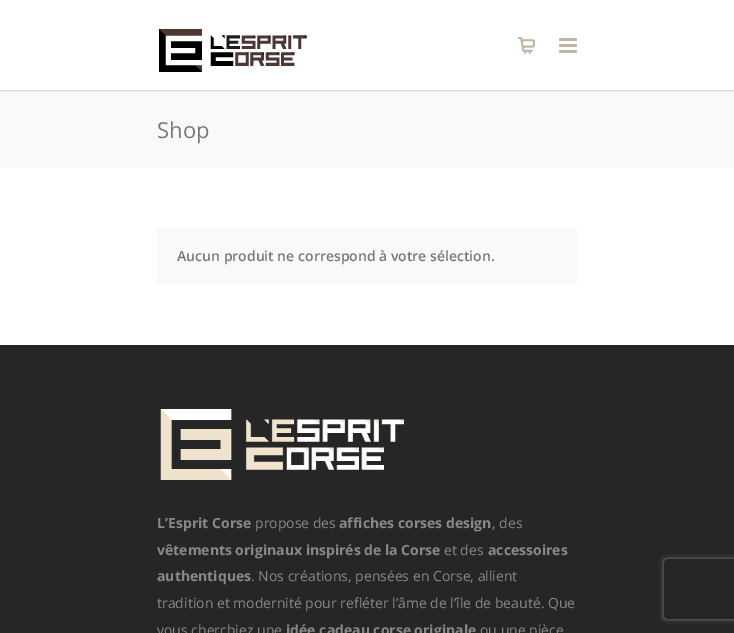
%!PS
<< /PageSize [734 633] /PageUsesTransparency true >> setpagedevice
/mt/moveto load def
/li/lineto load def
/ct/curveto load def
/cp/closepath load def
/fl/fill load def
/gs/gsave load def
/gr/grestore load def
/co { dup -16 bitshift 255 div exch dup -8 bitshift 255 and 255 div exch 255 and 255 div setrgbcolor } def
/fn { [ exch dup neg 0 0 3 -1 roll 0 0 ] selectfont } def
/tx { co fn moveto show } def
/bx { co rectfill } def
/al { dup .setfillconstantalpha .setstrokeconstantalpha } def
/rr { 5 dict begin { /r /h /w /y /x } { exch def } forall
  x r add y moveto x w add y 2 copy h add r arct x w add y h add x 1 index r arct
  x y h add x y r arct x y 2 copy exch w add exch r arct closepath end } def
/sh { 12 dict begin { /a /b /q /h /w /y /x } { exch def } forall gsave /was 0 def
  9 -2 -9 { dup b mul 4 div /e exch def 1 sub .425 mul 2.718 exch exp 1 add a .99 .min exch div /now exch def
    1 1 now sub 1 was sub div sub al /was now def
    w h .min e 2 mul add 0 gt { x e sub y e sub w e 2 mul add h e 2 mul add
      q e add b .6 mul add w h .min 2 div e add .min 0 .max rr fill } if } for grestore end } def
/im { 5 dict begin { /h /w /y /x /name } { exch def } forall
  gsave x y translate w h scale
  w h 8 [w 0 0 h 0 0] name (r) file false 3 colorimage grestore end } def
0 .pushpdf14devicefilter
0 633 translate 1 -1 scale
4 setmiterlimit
0 0 734 633 16#FFFFFF bx
0 90 734 78 16#F9F9F9 bx
gs
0 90 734 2 rectclip
16#000000 co
-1 -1 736 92 0 1 .16 sh
gr
(media/1.raw) 159 29 148 43 im
(media/2.raw) 518 37 17 17 im
(media/3.raw) 559 38 18 15 im
157 228 420 57 2 rr fl
0 345 734 288 16#262626 bx
(media/4.raw) 160 409 244 71 im
gs
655 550 mt 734 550 li 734 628 li 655 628 li cp 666 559 mt 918 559 li 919 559 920 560 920 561 ct 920 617 li 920 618 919 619 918 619 ct 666 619 li 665 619 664 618 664 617 ct 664 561 li 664 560 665 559 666 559 ct cp eoclip newpath
16#808080 co
664 559 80 60 2 2.5 1 sh
gr
(Shop) 157 138 /OpenSans-Regular 22 16#777777 tx
(Aucun produit ne correspond à votre sélection.) 177 261 /OpenSans-SemiBold 14 16#777777 tx
(L’Esprit Corse) 157 528 /OpenSans-Bold 14 16#888888 tx
(propose des) 255 528 /OpenSans-Regular 14 16#888888 tx
(affiches corses design) 339 528 /OpenSans-Bold 14 16#888888 tx
(, des) 492 528 /OpenSans-Regular 14 16#888888 tx
(vêtements originaux inspirés de la Corse) 157 555 /OpenSans-Bold 14 16#888888 tx
(et des) 444 555 /OpenSans-Regular 14 16#888888 tx
(accessoires) 488 555 /OpenSans-Bold 14 16#888888 tx
(authentiques) 157 581 /OpenSans-Bold 14 16#888888 tx
(. Nos créations, pensées en Corse, allient) 251 581 /OpenSans-Regular 14 16#888888 tx
(tradition et modernité pour refléter l’âme de l’île de beauté. Que) 157 608 /OpenSans-Regular 14 16#888888 tx
(vous cherchiez une) 157 635 /OpenSans-Regular 14 16#888888 tx
(idée cadeau corse originale) 286 635 /OpenSans-Bold 14 16#888888 tx
(ou une pièce) 480 635 /OpenSans-Regular 14 16#888888 tx
.poppdf14devicefilter showpage
